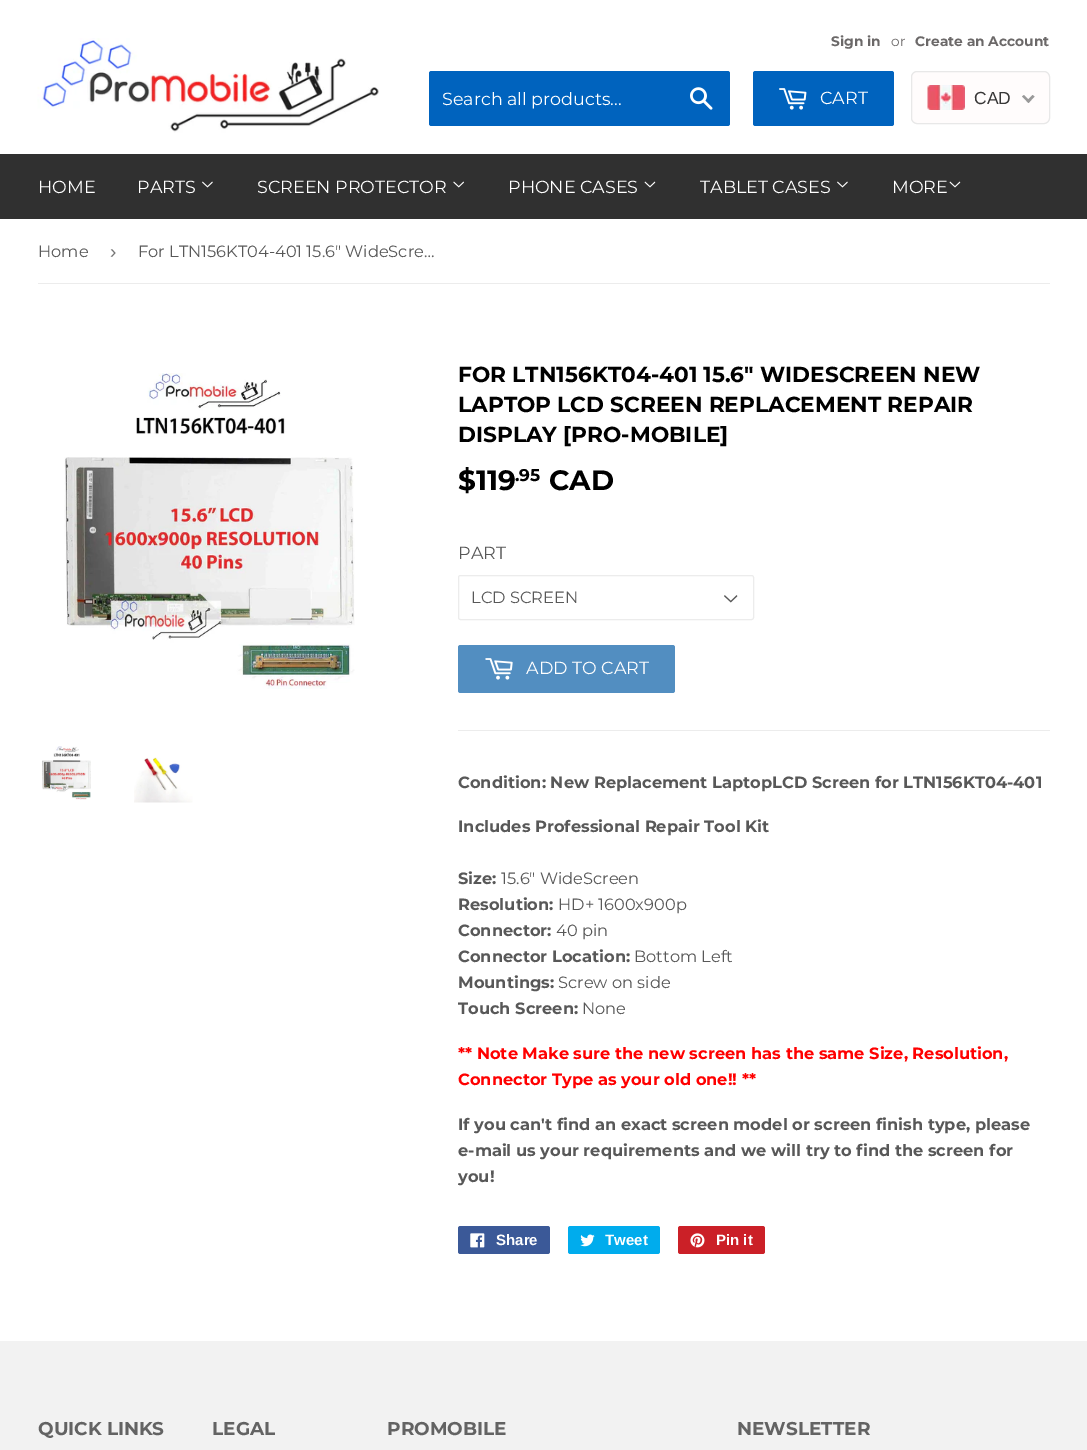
%!PS
<< /PageSize [1087 1450] >> setpagedevice
/mt/moveto load def
/li/lineto load def
/cp/closepath load def
/fl/fill load def
/st/stroke load def
/gs/gsave load def
/gr/grestore load def
/co { dup -16 bitshift 255 div exch dup -8 bitshift 255 and 255 div exch 255 and 255 div setrgbcolor } def
/fn { [ exch dup neg 0 0 3 -1 roll 0 0 ] selectfont } def
/tx { co fn moveto show } def
/bx { co rectfill } def
/rr { 5 dict begin { /r /h /w /y /x } { exch def } forall
  x r add y moveto x w add y 2 copy h add r arct x w add y h add x 1 index r arct
  x y h add x y r arct x y 2 copy exch w add exch r arct closepath end } def
/im { 5 dict begin { /h /w /y /x /name } { exch def } forall
  gsave x y translate w h scale
  w h 8 [w 0 0 h 0 0] name (r) file false 3 colorimage grestore end } def
0 1450 translate 1 -1 scale
4 setmiterlimit
0 0 1087 1450 16#FFFFFF bx
(media/1.raw) 37 38 342 95 im
16#0063BE co
429 71 301 55 2.5 rr fl
(media/2.raw) 690 87 23 23 im
753 71 141 55 2.5 rr fl
(media/3.raw) 779 88 28 22 im
16#FFFCFC co
911.5 71.5 138 52 5.5 rr gs fl gr
16#E8E8E8 co
st
(media/4.raw) 927 85 38 25 im
16#999999 co
1032.5 95 mt 1034.5 96.5 li 1028.5 103 li 1026.5 101 li cp fl
1024 95 mt 1030 101 li 1028.5 103 li 1022 96.5 li cp fl
0 154 1087 65 16#303030 bx
(media/5.raw) 202 181 11 7 im
(media/6.raw) 453 181 11 7 im
(media/7.raw) 644 181 12 7 im
(media/5.raw) 837 181 11 7 im
(media/7.raw) 949 181 12 7 im
38 283 1012 1 16#ECECEC bx
(media/8.raw) 64 373 291 316 im
(media/9.raw) 42 746 49 54 im
(media/10.raw) 134 757 59 46 im
(media/11.raw) 724 595 14 8 im
458.5 575.5 295 44 2 rr st
16#528EC1 co
458 645 217 48 2.5 rr fl
(media/12.raw) 485 658 28 22 im
458 730 592 1 16#ECECEC bx
16#3B5998 co
458 1226 92 28 2.5 rr fl
(media/13.raw) 470 1233 15 15 im
16#00ACED co
568 1226 92 28 2.5 rr fl
(media/14.raw) 580 1234 15 13 im
16#CB2027 co
678 1226 87 28 2.5 rr fl
(media/15.raw) 690 1233 15 15 im
0 1341 1087 109 16#F2F2F2 bx
(Sign in) 831 46 /Montserrat-Bold 13.75 16#6B6868 tx
(or) 891 46 /Montserrat-Regular 13.75 16#6B6868 tx
(Create an Account) 915 46 /Montserrat-Bold 13.75 16#6B6868 tx
(Search all products...) 442 105 /Montserrat-Regular 17.5 16#FFFFFF tx
(CART) 820 104 /Montserrat-Regular 17.5 16#FFFFFF tx
(CAD) 974 104 /LiberationSans-Regular 17.5 16#383737 tx
(HOME) 38 193 /Montserrat-Regular 17.5 16#FFFFFF tx
(PARTS) 137 193 /Montserrat-Regular 17.5 16#FFFFFF tx
(SCREEN PROTECTOR) 257 193 /Montserrat-Regular 17.5 16#FFFFFF tx
(PHONE CASES) 508 193 /Montserrat-Regular 17.5 16#FFFFFF tx
(TABLET CASES) 700 193 /Montserrat-Regular 17.5 16#FFFFFF tx
(MORE) 892 193 /Montserrat-Regular 17.5 16#FFFFFF tx
(Home) 38 257 /Montserrat-Regular 16.25 16#585858 tx
(›) 110 258 /LiberationSans-Regular 19 16#767676 tx
(For LTN156KT04-401 15.6" WideScre…) 138 257 /Montserrat-Regular 16.25 16#585858 tx
(FOR LTN156KT04-401 15.6" WIDESCREEN NEW) 458 382 /Montserrat-Bold 21.7 16#000000 tx
(LAPTOP LCD SCREEN REPLACEMENT REPAIR) 458 412 /Montserrat-Bold 21.7 16#000000 tx
(DISPLAY [PRO-MOBILE]) 458 442 /Montserrat-Bold 21.7 16#000000 tx
($119) 458 490 /Montserrat-Bold 28 16#000000 tx
(.95) 515 481 /Montserrat-Bold 17 16#000000 tx
(CAD) 549 490 /Montserrat-Bold 28 16#000000 tx
(PART) 458 559 /Montserrat-Regular 17.5 16#585858 tx
(LCD SCREEN) 471 603 /Montserrat-Regular 16.25 16#585858 tx
(ADD TO CART) 526 674 /Montserrat-Regular 17.5 16#FFFFFF tx
(Condition: New Replacement LaptopLCD Screen for LTN156KT04-401) 458 788 /Montserrat-Bold 16.25 16#585858 tx
(Includes Professional Repair Tool Kit) 458 832 /Montserrat-Bold 16.25 16#585858 tx
(Size:) 458 884 /Montserrat-Bold 16.25 16#585858 tx
(15.6" WideScreen) 501 884 /Montserrat-Regular 16.25 16#585858 tx
(Resolution:) 458 910 /Montserrat-Bold 16.25 16#585858 tx
(HD+ 1600x900p) 558 910 /Montserrat-Regular 16.25 16#585858 tx
(Connector:) 458 936 /Montserrat-Bold 16.25 16#585858 tx
(40 pin) 556 936 /Montserrat-Regular 16.25 16#585858 tx
(Connector Location:) 458 962 /Montserrat-Bold 16.25 16#585858 tx
(Bottom Left) 634 962 /Montserrat-Regular 16.25 16#585858 tx
(Mountings:) 458 988 /Montserrat-Bold 16.25 16#585858 tx
(Screw on side) 558 988 /Montserrat-Regular 16.25 16#585858 tx
(Touch Screen:) 458 1014 /Montserrat-Bold 16.25 16#585858 tx
(None) 582 1014 /Montserrat-Regular 16.25 16#585858 tx
(** Note Make sure the new screen has the same Size, Resolution,) 458 1059 /Montserrat-Bold 16.25 16#FF0000 tx
(Connector Type as your old one!! **) 458 1085 /Montserrat-Bold 16.25 16#FF0000 tx
(If you can't find an exact screen model or screen finish type, please) 458 1130 /Montserrat-Bold 16.25 16#585858 tx
(e-mail us your requirements and we will try to find the screen for) 458 1156 /Montserrat-Bold 16.25 16#585858 tx
(you!) 458 1182 /Montserrat-Bold 16.25 16#585858 tx
(Share) 496 1245 /LiberationSans-Bold 15 16#FFFFFF tx
(Tweet) 605 1245 /LiberationSans-Bold 15 16#FFFFFF tx
(Pin it) 716 1245 /LiberationSans-Bold 15 16#FFFFFF tx
(QUICK LINKS) 38 1435 /Montserrat-Bold 18.5 16#636363 tx
(LEGAL) 212 1435 /Montserrat-Bold 18.5 16#636363 tx
(PROMOBILE) 387 1435 /Montserrat-Bold 18.5 16#636363 tx
(NEWSLETTER) 737 1435 /Montserrat-Bold 18.5 16#636363 tx
showpage
